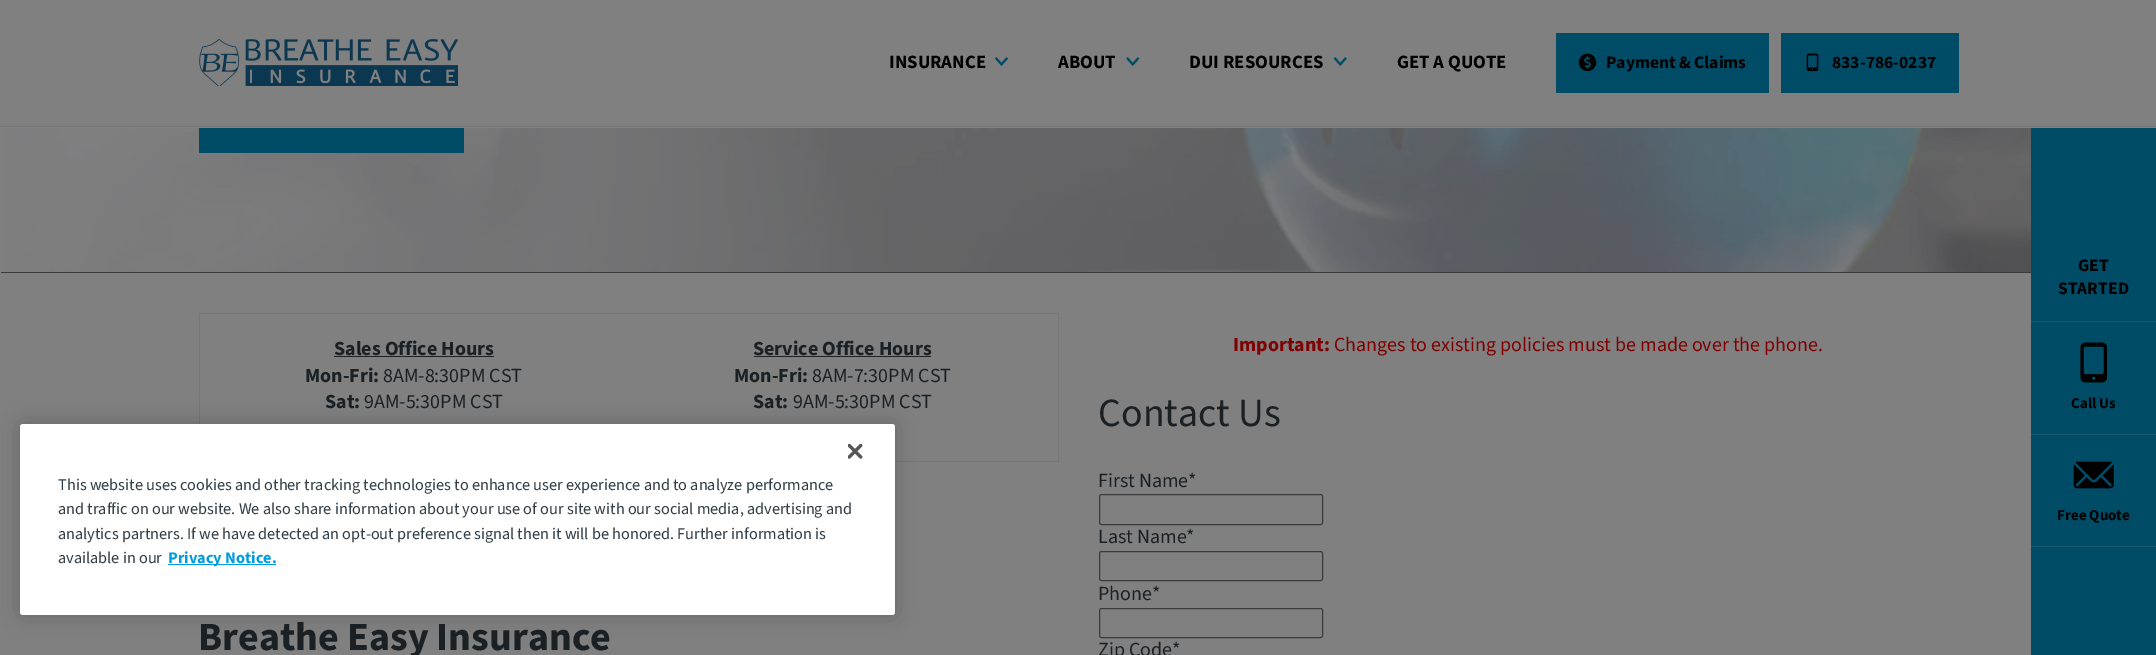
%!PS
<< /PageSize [2156 655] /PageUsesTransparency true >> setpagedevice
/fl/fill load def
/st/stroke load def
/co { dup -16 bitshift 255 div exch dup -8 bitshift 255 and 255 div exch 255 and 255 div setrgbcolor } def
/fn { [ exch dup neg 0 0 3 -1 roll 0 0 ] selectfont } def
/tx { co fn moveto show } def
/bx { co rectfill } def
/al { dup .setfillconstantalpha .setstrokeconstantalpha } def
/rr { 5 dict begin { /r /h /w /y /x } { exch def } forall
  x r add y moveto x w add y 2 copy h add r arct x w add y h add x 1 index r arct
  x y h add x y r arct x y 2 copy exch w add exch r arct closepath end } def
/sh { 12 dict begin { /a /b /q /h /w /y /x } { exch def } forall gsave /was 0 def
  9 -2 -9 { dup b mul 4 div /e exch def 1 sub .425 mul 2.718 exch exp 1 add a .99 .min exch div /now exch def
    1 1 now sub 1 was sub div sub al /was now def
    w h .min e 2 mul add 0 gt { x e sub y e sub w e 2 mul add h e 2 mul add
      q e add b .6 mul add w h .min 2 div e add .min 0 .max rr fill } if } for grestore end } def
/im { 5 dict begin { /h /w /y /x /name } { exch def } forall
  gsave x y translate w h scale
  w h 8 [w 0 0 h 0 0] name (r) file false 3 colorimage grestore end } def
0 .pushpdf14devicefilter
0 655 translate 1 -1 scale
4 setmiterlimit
0 0 2156 655 16#808080 bx
0 126 2156 1 16#737373 bx
(media/1.raw) 199 39 259 47 im
(media/2.raw) 995 57 13 9 im
(media/3.raw) 1126 57 14 9 im
(media/4.raw) 1333 57 14 9 im
1556 33 213 60 16#004C67 bx
(media/5.raw) 1578 53 19 19 im
1781 33 178 60 16#004C67 bx
(media/6.raw) 1806 53 13 19 im
1 272 2030 1 16#3A3A3A bx
(media/7.raw) 1 128 2030 144 im
199 128 265 25 16#004C67 bx
199 313 860 1 16#74787B bx
1058 313 1 150 16#74787B bx
895 461 164 1 16#74787B bx
199 313 1 111 16#74787B bx
334 356 160 1 16#1A2024 bx
754 356 177 1 16#1A2024 bx
16#3B3B3B co
1099.5 494.5 223 30 2 rr st
1099.5 551.5 223 29 2 rr st
1099.5 608.5 223 29 2 rr st
2031 128 125 527 16#004C67 bx
2031 321 125 1 16#1A566C bx
2031 434 125 1 16#1A566C bx
(media/8.raw) 2080 342 28 41 im
2031 546 125 1 16#1A566C bx
(media/9.raw) 2073 461 41 28 im
16#000000 co
20 424 875 191 3 11 .2 sh
16#FFFFFF co
20 424 875 191 3 rr fl
(media/10.raw) 848 444 15 15 im
168 564 108 1 16#009CDE bx
(INSURANCE) 889 68 /SourceSans3-ExtraLight 18.75 16#000000 tx
(ABOUT) 1058 68 /SourceSans3-ExtraLight 18.75 16#000000 tx
(DUI RESOURCES) 1189 68 /SourceSans3-ExtraLight 18.75 16#000000 tx
(GET A QUOTE) 1397 68 /SourceSans3-ExtraLight 18.75 16#000000 tx
(Payment & Claims) 1606 68 /SourceSans3-ExtraLight 17.5 16#000000 tx
(833-786-0237) 1832 68 /SourceSans3-ExtraLight 17.5 16#000000 tx
(Sales Office Hours) 334 355 /SourceSans3-ExtraLight 20 16#1A2024 tx
(Mon-Fri:) 305 382 /SourceSans3-ExtraLight 20 16#1A2024 tx
(8AM-8:30PM CST) 383 382 /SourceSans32-ExtraLight 20 16#1A2024 tx
(Sat:) 325 408 /SourceSans3-ExtraLight 20 16#1A2024 tx
(9AM-5:30PM CST) 364 408 /SourceSans32-ExtraLight 20 16#1A2024 tx
(Service Office Hours) 753 355 /SourceSans3-ExtraLight 20 16#1A2024 tx
(Mon-Fri:) 734 382 /SourceSans3-ExtraLight 20 16#1A2024 tx
(8AM-7:30PM CST) 812 382 /SourceSans32-ExtraLight 20 16#1A2024 tx
(Sat:) 753 408 /SourceSans3-ExtraLight 20 16#1A2024 tx
(9AM-5:30PM CST) 793 408 /SourceSans32-ExtraLight 20 16#1A2024 tx
(Breathe Easy Insurance) 198 650 /SourceSans3-ExtraLight 40 16#1A2024 tx
(Important:) 1233 351 /SourceSans3-ExtraLight 20 16#800000 tx
(Changes to existing policies must be made over the phone.) 1334 351 /SourceSans32-ExtraLight 20 16#800000 tx
(Contact Us) 1098 426 /SourceSans32-ExtraLight 40 16#1A2024 tx
(First Name*) 1098 487 /SourceSans32-ExtraLight 20 16#1A2024 tx
(Last Name*) 1098 543 /SourceSans32-ExtraLight 20 16#1A2024 tx
(Phone*) 1098 600 /SourceSans32-ExtraLight 20 16#1A2024 tx
(Zip Code*) 1098 656 /SourceSans32-ExtraLight 20 16#1A2024 tx
(GET) 2078 271 /SourceSans3-ExtraLight 17.5 16#000000 tx
(STARTED) 2058 294 /SourceSans3-ExtraLight 17.5 16#000000 tx
(Call Us) 2071 408 /SourceSans3-ExtraLight 15 16#000000 tx
(Free Quote) 2057 520 /SourceSans3-ExtraLight 15 16#000000 tx
(This website uses cookies and other tracking technologies to enhance user experience and to analyze performance) 58 490 /SourceSans32-ExtraLight 16.25 16#333F48 tx
(and traffic on our website. We also share information about your use of our site with our social media, advertising and) 58 514 /SourceSans32-ExtraLight 16.25 16#333F48 tx
(analytics partners. If we have detected an opt-out preference signal then it will be honored. Further information is) 58 539 /SourceSans32-ExtraLight 16.25 16#333F48 tx
(available in our) 58 563 /SourceSans32-ExtraLight 16.25 16#333F48 tx
(Privacy Notice.) 168 563 /SourceSans3-ExtraLight 16.25 16#009CDE tx
.poppdf14devicefilter showpage
